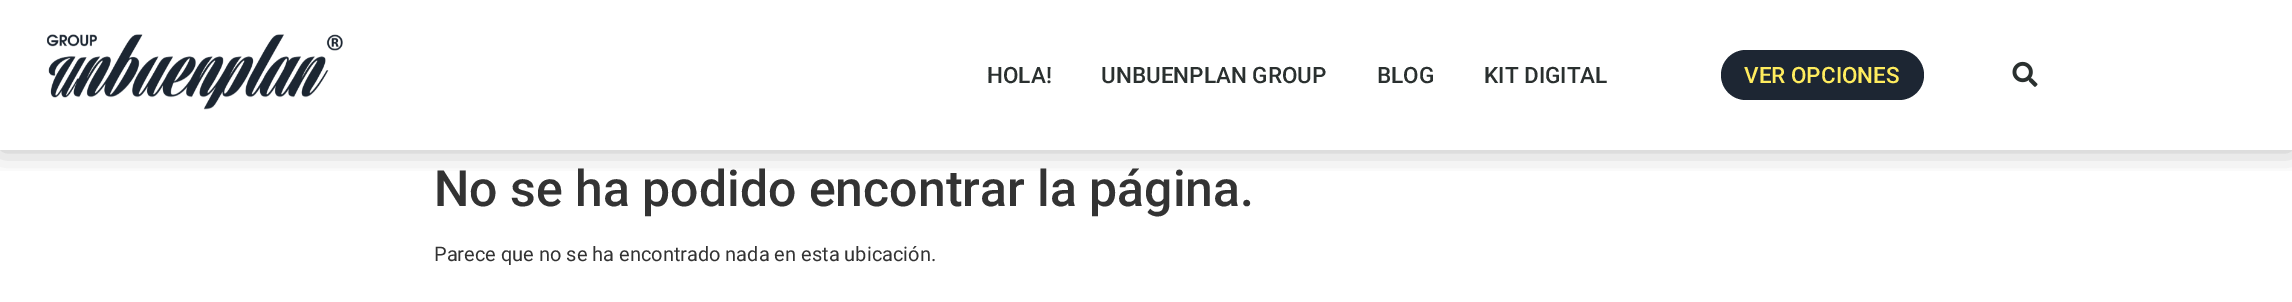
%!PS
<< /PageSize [2292 302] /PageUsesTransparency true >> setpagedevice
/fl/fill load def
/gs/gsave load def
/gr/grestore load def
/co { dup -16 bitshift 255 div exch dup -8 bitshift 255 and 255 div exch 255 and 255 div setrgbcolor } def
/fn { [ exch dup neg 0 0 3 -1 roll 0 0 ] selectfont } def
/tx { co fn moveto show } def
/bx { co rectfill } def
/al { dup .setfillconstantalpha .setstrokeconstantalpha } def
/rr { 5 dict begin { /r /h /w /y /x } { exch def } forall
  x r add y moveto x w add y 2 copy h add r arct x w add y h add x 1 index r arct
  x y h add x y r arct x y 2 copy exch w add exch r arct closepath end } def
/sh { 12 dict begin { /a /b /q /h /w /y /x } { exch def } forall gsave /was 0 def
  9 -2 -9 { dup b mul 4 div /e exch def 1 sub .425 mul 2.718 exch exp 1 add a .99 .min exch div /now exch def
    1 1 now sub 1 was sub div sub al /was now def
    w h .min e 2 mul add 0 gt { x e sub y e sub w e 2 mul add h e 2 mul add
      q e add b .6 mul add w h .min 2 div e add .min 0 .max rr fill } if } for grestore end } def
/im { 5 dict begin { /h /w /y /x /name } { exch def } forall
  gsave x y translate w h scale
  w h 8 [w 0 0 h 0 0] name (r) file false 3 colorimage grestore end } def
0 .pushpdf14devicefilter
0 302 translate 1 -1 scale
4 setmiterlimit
0 0 2292 302 16#FFFFFF bx
gs
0 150 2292 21 rectclip
16#000000 co
0 0 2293 150 0 14.5 .26 sh
gr
(media/1.raw) 46 34 297 76 im
16#1D2633 co
1721 50 203 50 25 rr fl
(media/2.raw) 2012 61 26 26 im
(HOLA!) 987 83 /Roboto-Medium 22.5 16#2A302F tx
(UNBUENPLAN GROUP) 1101 83 /Roboto-Medium 22.5 16#2A302F tx
(BLOG) 1377 83 /Roboto-Medium 22.5 16#2A302F tx
(KIT DIGITAL) 1484 83 /Roboto-Medium 22.5 16#2A302F tx
(VER OPCIONES) 1744 83 /Roboto-Medium 22.5 16#FFEC5E tx
(No se ha podido encontrar la página.) 434 206 /Roboto-Medium 50 16#333333 tx
(Parece que no se ha encontrado nada en esta ubicación.) 434 261 /Roboto-Regular 20 16#333333 tx
.poppdf14devicefilter showpage
